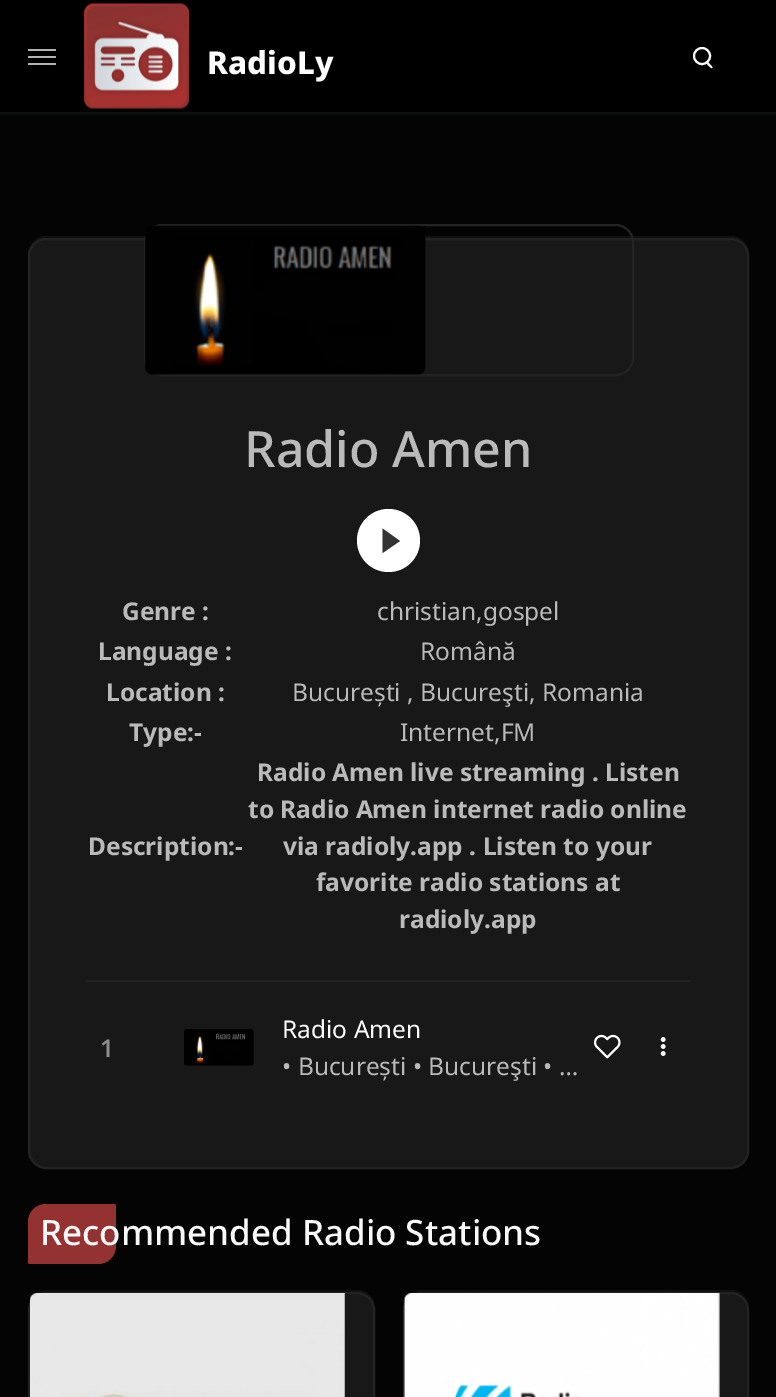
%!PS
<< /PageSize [776 1397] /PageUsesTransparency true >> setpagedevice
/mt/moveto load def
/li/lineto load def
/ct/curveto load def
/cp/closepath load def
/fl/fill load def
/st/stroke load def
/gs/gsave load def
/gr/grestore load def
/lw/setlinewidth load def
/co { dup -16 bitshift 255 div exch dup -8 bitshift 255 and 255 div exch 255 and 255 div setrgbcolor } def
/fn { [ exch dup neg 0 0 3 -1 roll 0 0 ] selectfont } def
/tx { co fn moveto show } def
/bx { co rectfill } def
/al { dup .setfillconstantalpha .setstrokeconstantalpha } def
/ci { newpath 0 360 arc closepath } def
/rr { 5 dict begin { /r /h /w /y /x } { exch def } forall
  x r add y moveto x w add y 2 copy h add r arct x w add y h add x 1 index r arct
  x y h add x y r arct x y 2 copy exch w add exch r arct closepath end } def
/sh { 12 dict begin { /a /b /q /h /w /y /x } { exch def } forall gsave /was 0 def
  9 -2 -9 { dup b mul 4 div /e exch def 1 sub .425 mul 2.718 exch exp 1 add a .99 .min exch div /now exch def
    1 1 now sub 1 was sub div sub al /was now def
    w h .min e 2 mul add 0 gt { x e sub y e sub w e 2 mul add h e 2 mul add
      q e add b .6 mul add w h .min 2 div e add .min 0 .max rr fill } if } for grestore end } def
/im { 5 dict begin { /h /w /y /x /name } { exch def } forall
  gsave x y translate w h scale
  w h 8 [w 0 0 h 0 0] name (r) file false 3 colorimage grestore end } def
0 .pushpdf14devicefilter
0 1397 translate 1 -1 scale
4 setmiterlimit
0 0 776 1397 16#040404 bx
16#828C96 co
0 2 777 112 0 1 .1 sh
0 0 776 112 16#000000 bx
16#B3B3B3 co
28 49 28 2 1 rr fl
28 56 28 2 1 rr fl
28 63 28 2 1 rr fl
(media/1.raw) 84 3 105 106 im
16#FFFFFF co
2 lw
702 56 8 ci st
707.5 61.5 mt 711.5 66 li 713.5 68 712 69 710 67 ct 709.5 66.5 704.5 62.5 706 61.5 ct cp fl
16#101112 co
46 236 mt 35 236 28 245 28 256 ct 28 246 36 238 46 238 ct 732 238 li 741 238 749 246 749 256 ct 749 245 742 236 731 236 ct cp fl
16#191818 co
29 239 719 929 17 rr gs fl gr
16#232323 co
st
145 225 488 150 17 rr st
(media/2.raw) 145 225 281 150 im
16#FFFFFF co
388.5 540.5 31.5 ci fl
16#333333 co
382.5 553 mt 382.5 528.5 li 400 541 li cp fl
86 980 605 2 16#232324 bx
(media/3.raw) 184 1029 70 37 im
(media/4.raw) 593 1034 28 25 im
16#FFFFFF co
663.2 1046.5 2.3 ci fl
663.2 1039.5 2.3 ci fl
663.2 1053.5 2.3 ci fl
16#933230 co
46 1204 mt 114 1204 li 115 1204 116 1205 116 1206 ct 116 1246 li 116 1256 108 1264 98 1264 ct 30 1264 li 29 1264 28 1263 28 1262 ct 28 1222 li 28 1212 36 1204 46 1204 ct cp fl
16#101112 co
46 1290 mt 35 1290 28 1299 28 1309 ct 28 1299 36 1292 46 1292 ct 357 1292 li 367 1292 374 1299 374 1309 ct 374 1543 li 375 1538 li 375 1308 li 375 1298 367 1290 357 1290 ct cp fl
16#191818 co
29 1293 345 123 17 rr gs fl gr
16#232323 co
st
(media/5.raw) 30 1293 315 104 im
16#101112 co
421 1290 mt 413 1290 407 1295 404 1301 ct 407 1295 413 1292 420 1292 ct 732 1292 li 741 1292 749 1299 749 1309 ct 749 1299 742 1290 731 1290 ct cp fl
16#191818 co
404 1293 344 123 17 rr gs fl gr
16#232323 co
st
(media/6.raw) 403 1293 317 104 im
(RadioLy) 207 74 /NotoSans-ExtraBold 31.5 16#FFFFFF tx
(Radio Amen) 244 467 /NotoSans-Medium 50 16#BABABA tx
(Genre :) 122 620 /NotoSans-Bold 24.5 16#BABABA tx
(christian,gospel) 377 620 /NotoSans-Regular 24.5 16#BABABA tx
(Language :) 98 660 /NotoSans-Bold 24.5 16#BABABA tx
(Română) 420 660 /NotoSans-Regular 24.5 16#BABABA tx
(Location :) 106 701 /NotoSans-Bold 24.5 16#BABABA tx
(București , Bucureşti, Romania) 292 701 /NotoSans-Regular 24.5 16#BABABA tx
(Type:-) 129 741 /NotoSans-Bold 24.5 16#BABABA tx
(Internet,FM) 400 741 /NotoSans-Regular 24.5 16#BABABA tx
(Description:-) 88 855 /NotoSans-Bold 24.5 16#BABABA tx
(Radio Amen live streaming . Listen) 257 781 /NotoSans-Bold 24.5 16#BABABA tx
(to Radio Amen internet radio online) 248 818 /NotoSans-Bold 24.5 16#BABABA tx
(via radioly.app . Listen to your) 283 855 /NotoSans-Bold 24.5 16#BABABA tx
(favorite radio stations at) 316 891 /NotoSans-Bold 24.5 16#BABABA tx
(radioly.app) 399 928 /NotoSans-Bold 24.5 16#BABABA tx
(1) 100 1057 /NotoSans-SemiBold 24.5 16#8C8C8C tx
(Radio Amen) 282 1038 /NotoSans-Regular 24.5 16#FFFFFF tx
(• București • Bucureşti • …) 282 1075 /NotoSans-Regular 24.5 16#BABABA tx
(Recommended Radio Stations) 40 1245 /NotoSans-Medium 35 16#F8F8F8 tx
.poppdf14devicefilter showpage
